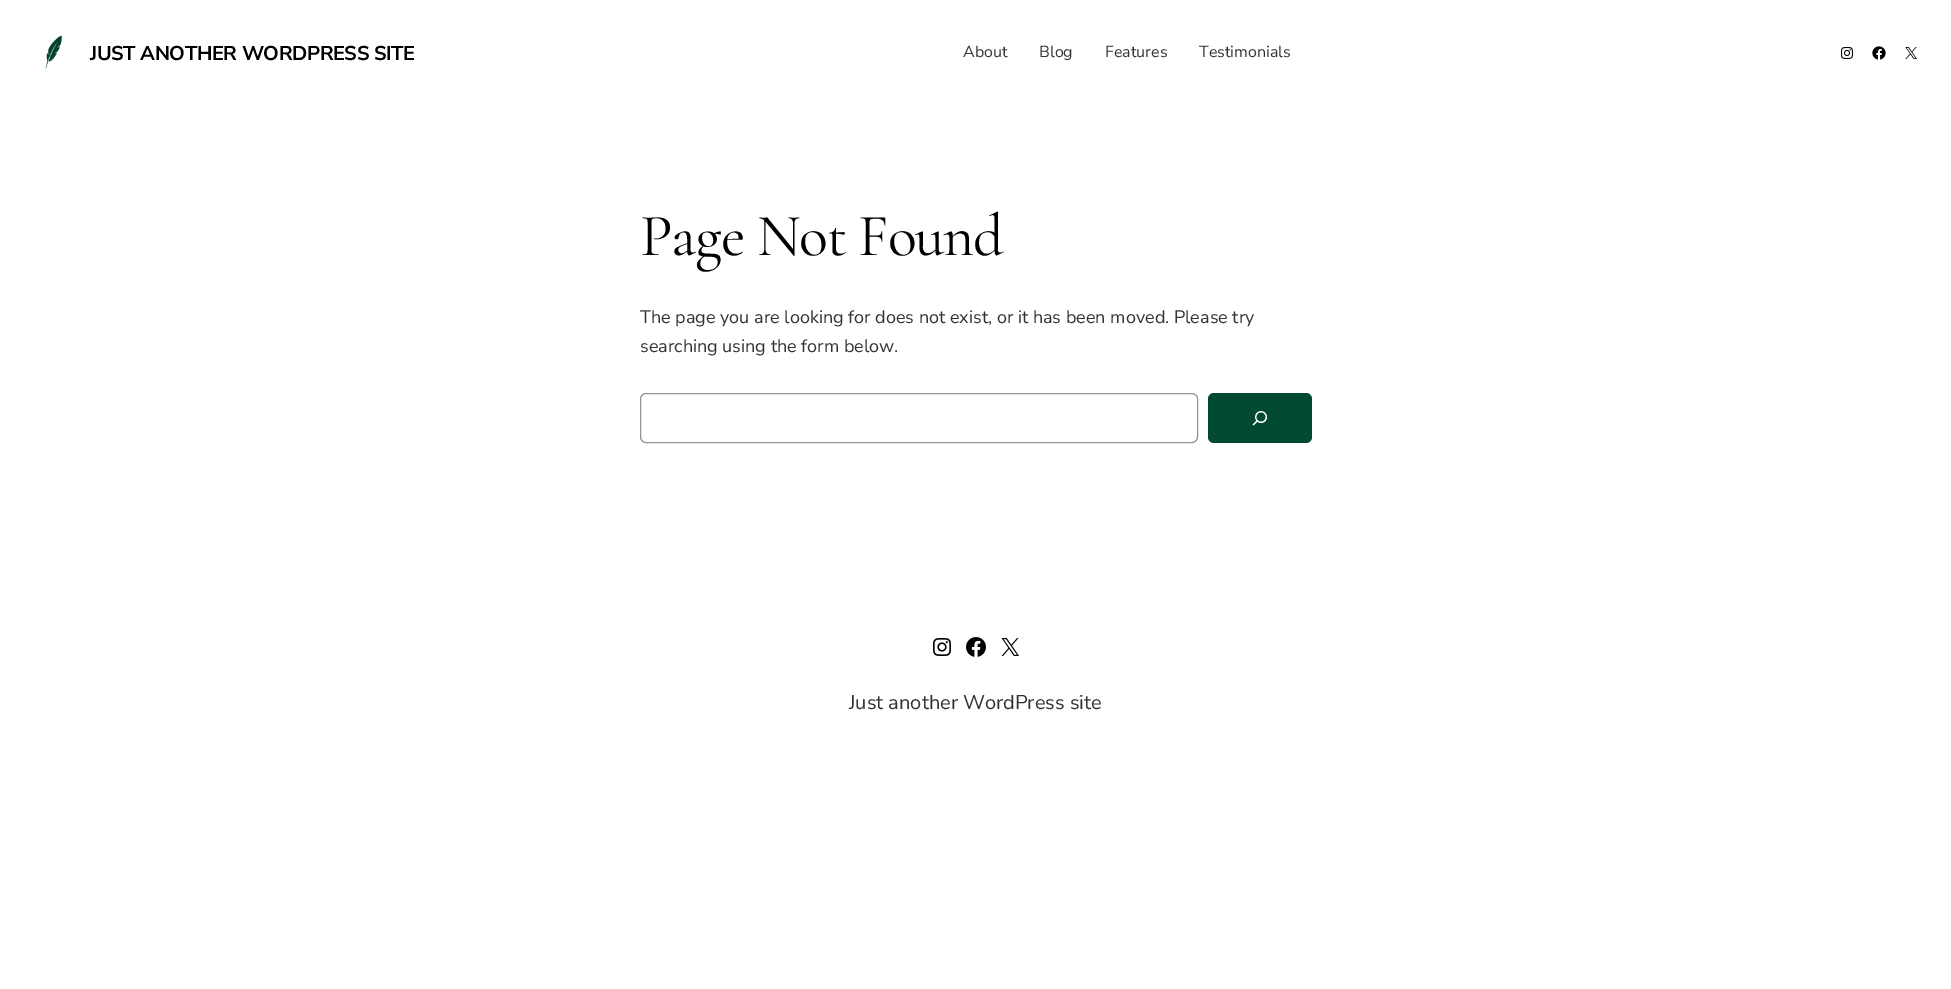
%!PS
<< /PageSize [1951 989] >> setpagedevice
/mt/moveto load def
/fl/fill load def
/st/stroke load def
/co { dup -16 bitshift 255 div exch dup -8 bitshift 255 and 255 div exch 255 and 255 div setrgbcolor } def
/fn { [ exch dup neg 0 0 3 -1 roll 0 0 ] selectfont } def
/tx { co fn moveto show } def
/bx { co rectfill } def
/rr { 5 dict begin { /r /h /w /y /x } { exch def } forall
  x r add y moveto x w add y 2 copy h add r arct x w add y h add x 1 index r arct
  x y h add x y r arct x y 2 copy exch w add exch r arct closepath end } def
/im { 5 dict begin { /h /w /y /x /name } { exch def } forall
  gsave x y translate w h scale
  w h 8 [w 0 0 h 0 0] name (r) file false 3 colorimage grestore end } def
0 989 translate 1 -1 scale
4 setmiterlimit
0 0 1951 989 16#FFFFFF bx
(media/1.raw) 45 35 18 34 im
(media/2.raw) 1841 47 12 12 im
(media/3.raw) 1872 46 14 14 im
(media/4.raw) 1905 47 12 12 im
16#949494 co
640.5 393.5 557 49 5.5 rr st
16#014932 co
1208 393 104 50 6 rr fl
(media/5.raw) 1252 411 16 15 im
(media/6.raw) 933 638 18 18 im
(media/7.raw) 966 637 20 20 im
(media/8.raw) 1001 638 18 18 im
/NunitoSans-ExtraLight 20 fn
16#000000 co
90 60 mt -.4 0 (JUST ANOTHER WORDPRESS SITE) ashow
(About) 963 57 /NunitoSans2-ExtraLight 16 16#333333 tx
(Blog) 1039 57 /NunitoSans2-ExtraLight 16 16#333333 tx
(Features) 1105 57 /NunitoSans2-ExtraLight 16 16#333333 tx
(Testimonials) 1199 57 /NunitoSans2-ExtraLight 16 16#333333 tx
/CormorantGaramond-Light 60 fn
16#000000 co
640 255 mt -1.25 0 (Page Not Found) ashow
(The page you are looking for does not exist, or it has been moved. Please try) 640 323 /NunitoSans2-ExtraLight 18 16#333333 tx
(searching using the form below.) 640 352 /NunitoSans2-ExtraLight 18 16#333333 tx
(Just another WordPress site) 849 709 /NunitoSans2-ExtraLight 20 16#333333 tx
showpage
